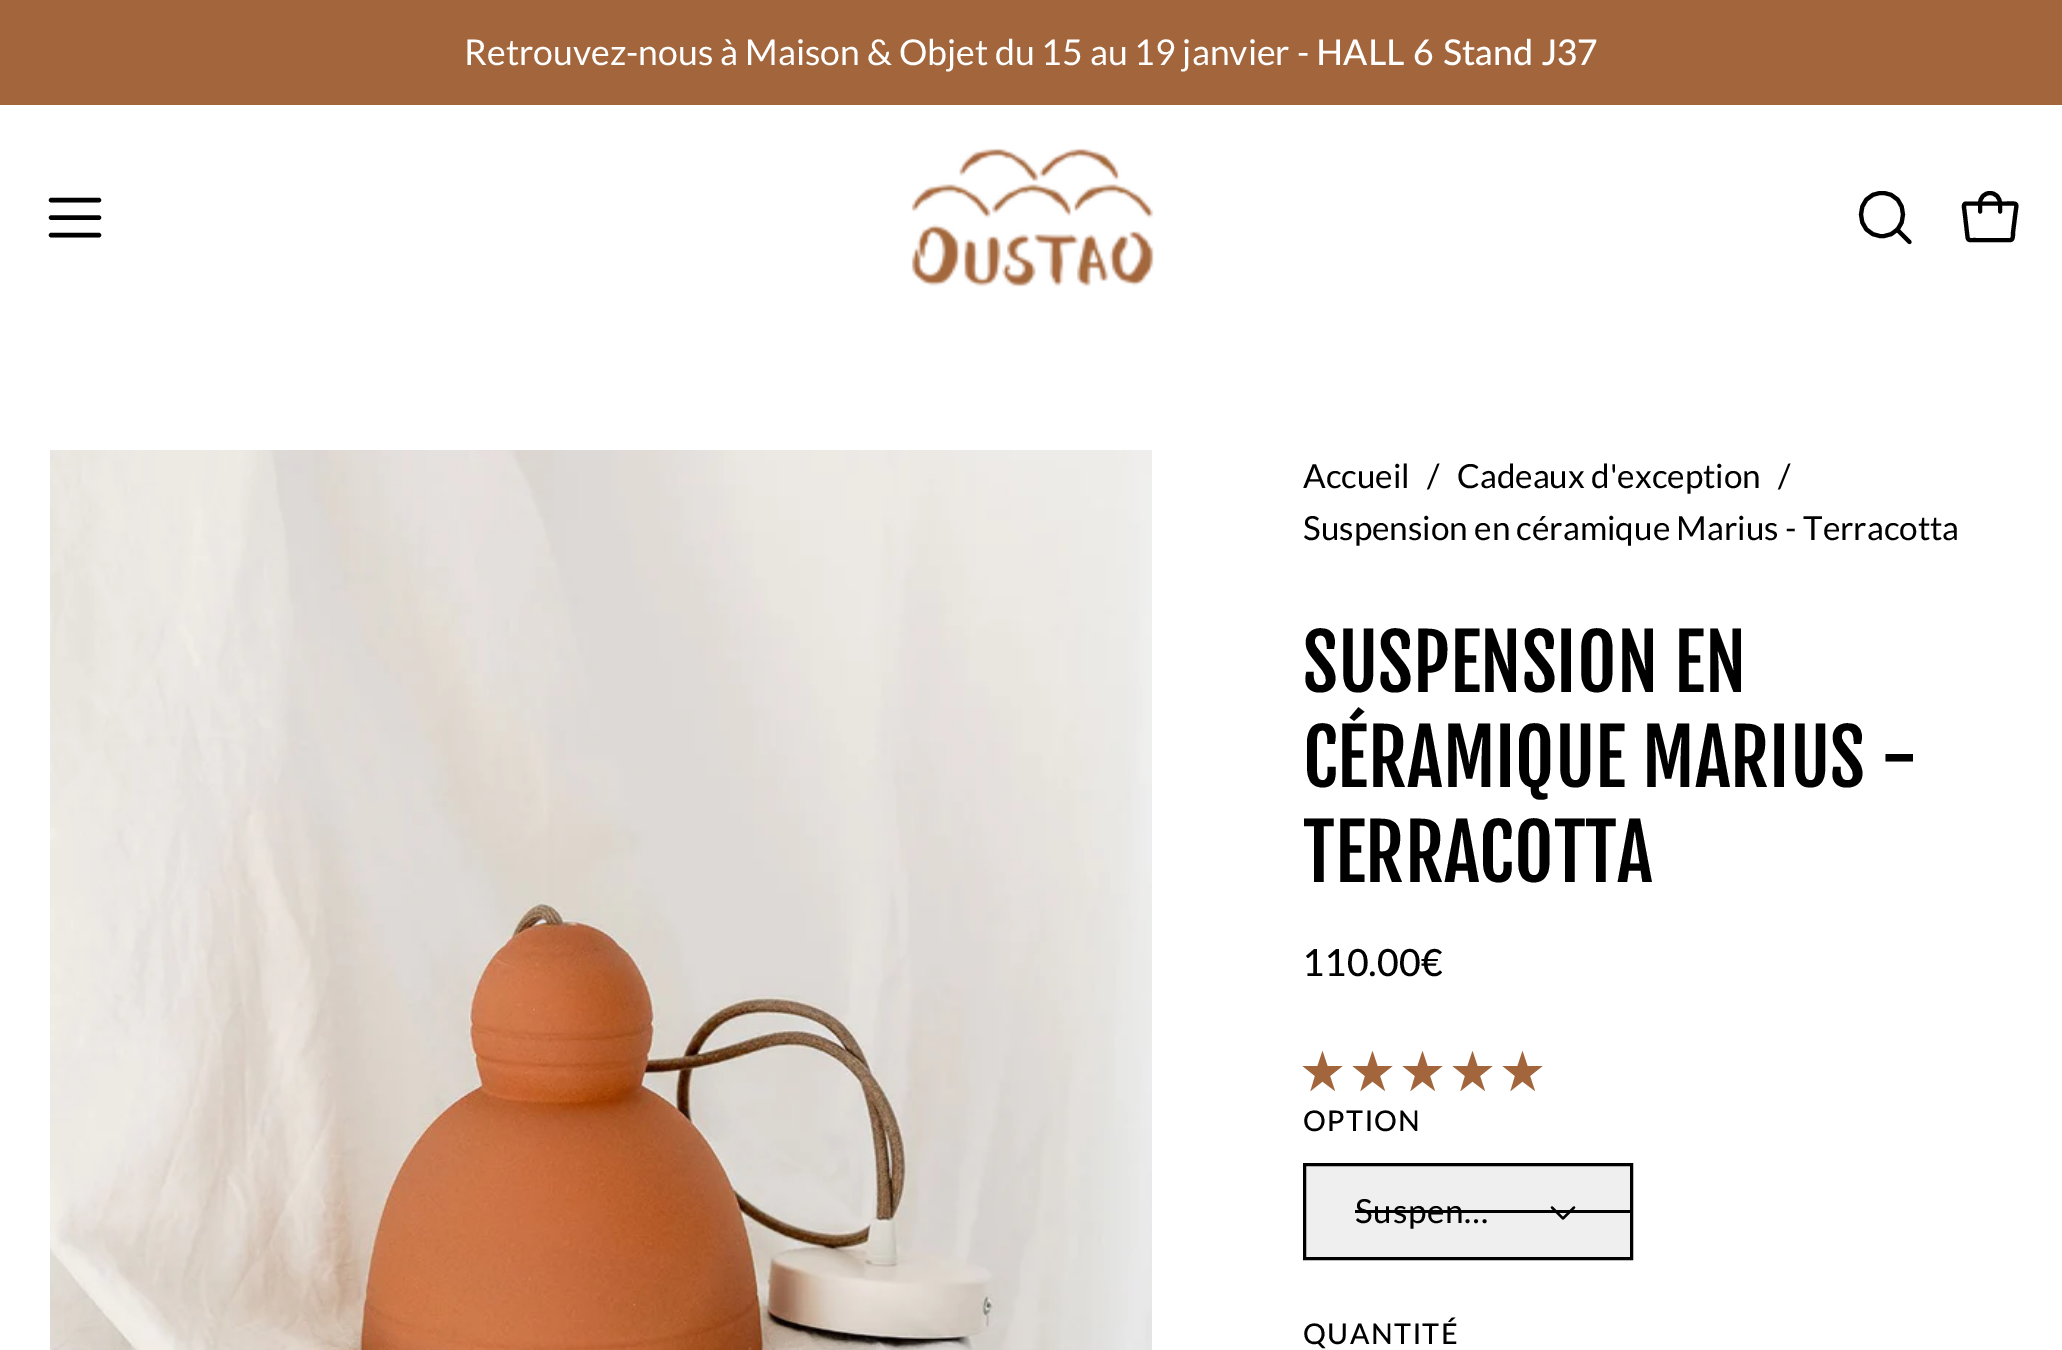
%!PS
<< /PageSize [2062 1350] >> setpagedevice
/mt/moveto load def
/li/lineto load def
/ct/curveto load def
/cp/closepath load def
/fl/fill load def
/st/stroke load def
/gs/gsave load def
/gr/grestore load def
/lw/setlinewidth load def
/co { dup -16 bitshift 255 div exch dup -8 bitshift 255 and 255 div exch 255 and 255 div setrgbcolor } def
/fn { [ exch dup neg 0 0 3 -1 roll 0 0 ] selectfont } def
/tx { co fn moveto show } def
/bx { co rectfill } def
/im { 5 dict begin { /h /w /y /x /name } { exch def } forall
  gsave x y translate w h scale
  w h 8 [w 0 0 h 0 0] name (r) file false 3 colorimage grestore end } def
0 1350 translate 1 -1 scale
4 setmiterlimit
0 0 2062 1350 16#FFFFFF bx
0 0 2062 105 16#A3663C bx
16#000000 co
4.4 lw
1 setlinecap
1 setlinejoin
51 217.5 mt 99 217.5 li 51 200 mt 99 200 li 51 235 mt 99 235 li st
(media/1.raw) 911 148 243 139 im
4.1 lw
1882 236 mt 1910 236 1910 193 1882 193 ct 1854 193 1854 236 1882 236 ct cp 1897 229.5 mt 1909.5 242 li st
2010.5 240 mt 1976.5 240 li 1967 240 1968 241.5 1967 232.5 ct 1964.5 211 li 1964.5 210 1962.5 203.5 1966 203.5 ct 2006 203.5 li 2019.5 203.5 2016.5 202 2015 216.5 ct 2013 232.5 li 2013 233.5 2013.5 240 2010.5 240 ct cp 1980 211.5 mt 1980 203.5 li 1980 197.5 1984.5 193 1990 193 ct 1995.5 193 2000 197.5 2000 203.5 ct 2000 211.5 li st
(media/2.raw) 50 450 1102 900 im
16#A3663C co
1330 1076 mt 1342.5 1066 li 1327.5 1066 li 1322.5 1051 li 1317.5 1066 li 1302.5 1066 li 1315 1076 li 1310.5 1091 li 1322.5 1081.5 li 1335 1091 li cp fl
1380 1076 mt 1392.5 1066 li 1377.5 1066 li 1372.5 1051 li 1367.5 1066 li 1352.5 1066 li 1365 1076 li 1360.5 1091 li 1372.5 1081.5 li 1385 1091 li cp fl
1430 1076 mt 1442.5 1066 li 1427.5 1066 li 1422.5 1051 li 1417.5 1066 li 1402.5 1066 li 1415 1076 li 1410.5 1091 li 1422.5 1081.5 li 1435 1091 li cp fl
1480 1076 mt 1492.5 1066 li 1477.5 1066 li 1472.5 1051 li 1467.5 1066 li 1452.5 1066 li 1465 1076 li 1460.5 1091 li 1472.5 1081.5 li 1485 1091 li cp fl
1530 1076 mt 1542.5 1066 li 1527.5 1066 li 1522.5 1051 li 1517.5 1066 li 1502.5 1066 li 1515 1076 li 1510.5 1091 li 1522.5 1081.5 li 1535 1091 li cp fl
16#EFEFEF co
1304.5 1164.5 mt 1631.5 1164.5 li 1631.5 1258.5 li 1304.5 1258.5 li cp gs fl gr
16#000000 co
3 lw
0 setlinecap
0 setlinejoin
st
1355 1210 275 3 16#000000 bx
2.2 lw
1 setlinecap
1 setlinejoin
1574 1207.5 mt 1563 1218.5 li 1552 1207.5 li st
(Retrouvez-nous à Maison & Objet du 15 au 19 janvier -) 464 65 /Lato-Regular 35.6 16#FFFFFF tx
(HALL 6 Stand J37) 1316 65 /Lato-Medium 35.6 16#FFFFFF tx
(Accueil) 1303 488 /Lato-Regular 33.25 16#000000 tx
(/) 1427 488 /Lato-Regular 33.25 16#000000 tx
(Cadeaux d'exception) 1457 488 /Lato-Regular 33.25 16#000000 tx
(/) 1778 488 /Lato-Regular 33.25 16#000000 tx
(Suspension en céramique Marius - Terracotta) 1303 540 /Lato-Regular 33.25 16#000000 tx
(SUSPENSION EN) 1303 692 /FjallaOne-Regular 76 16#000000 tx
(CÉRAMIQUE MARIUS -) 1303 787 /FjallaOne-Regular 76 16#000000 tx
(TERRACOTTA) 1303 882 /FjallaOne-Regular 76 16#000000 tx
(110.00€) 1303 976 /Lato-Medium 37.5 16#000000 tx
/Lato-Medium 28.5 fn
1303 1131 mt 1.5 0 (OPTION) ashow
/Lato-Regular 33.25 fn
1355 1223 mt .75 0 (Suspen…) ashow
/Lato-Medium 28.5 fn
1303 1344 mt 1.5 0 (QUANTITÉ) ashow
showpage
